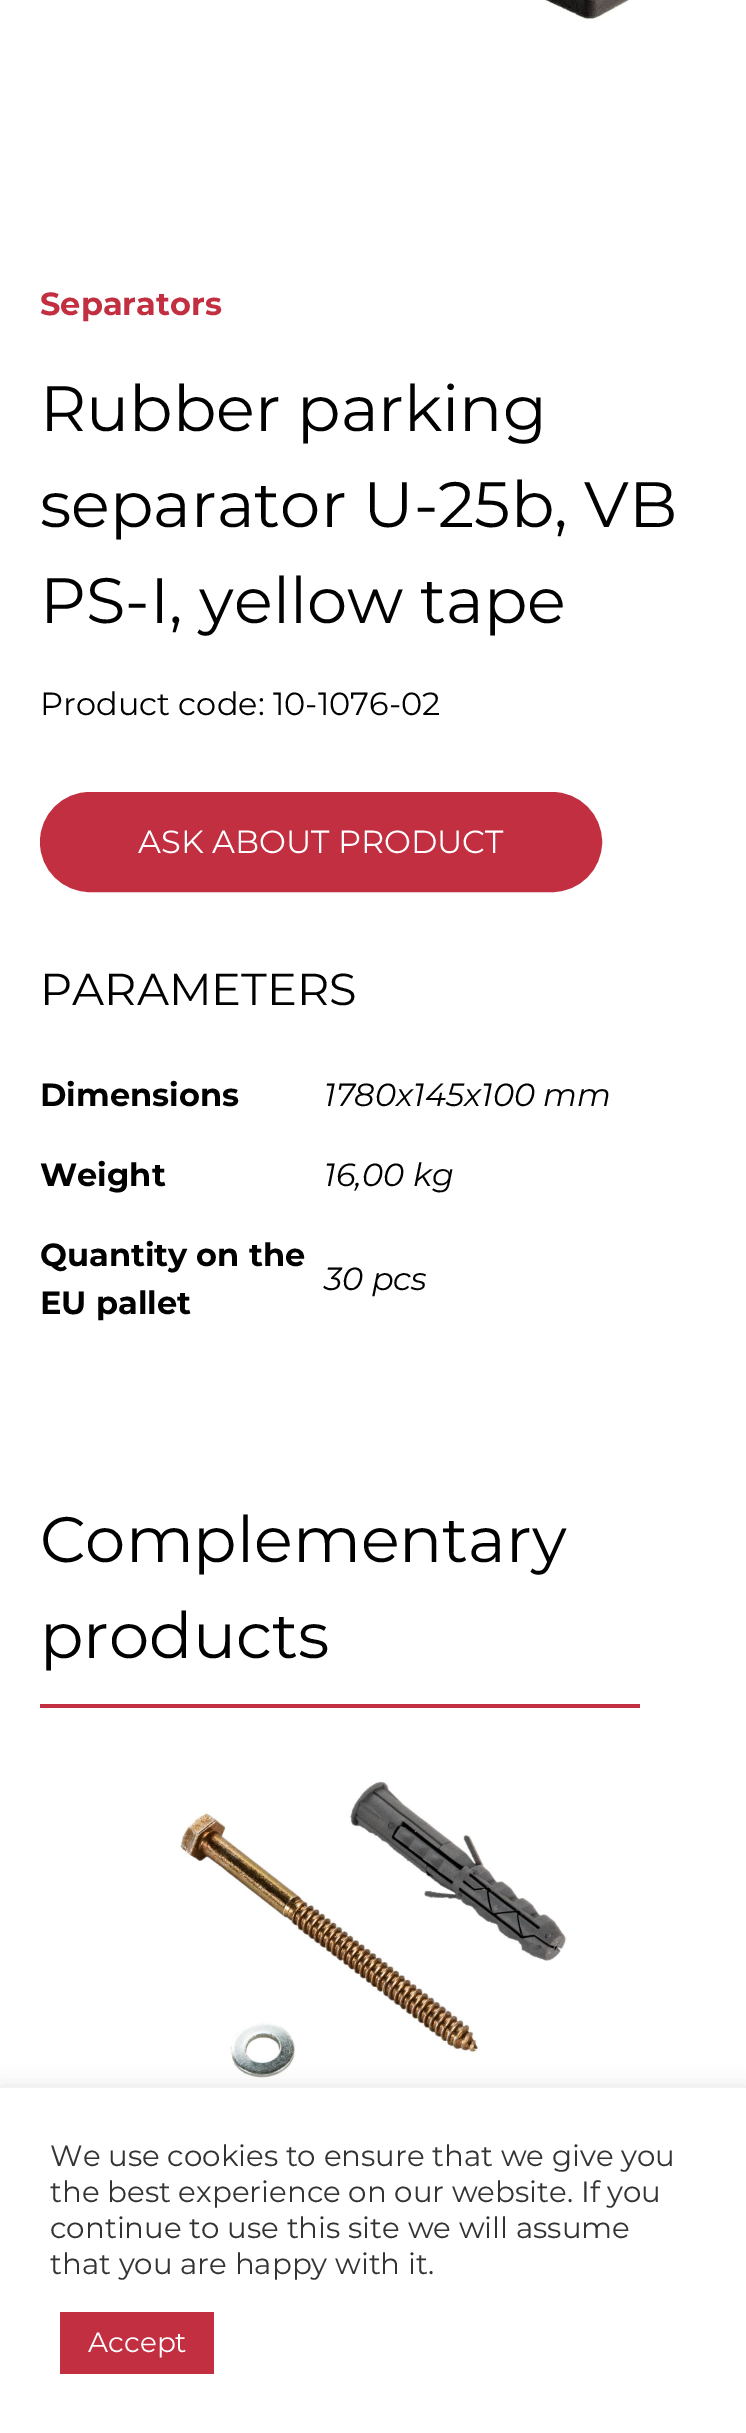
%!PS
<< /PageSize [746 2433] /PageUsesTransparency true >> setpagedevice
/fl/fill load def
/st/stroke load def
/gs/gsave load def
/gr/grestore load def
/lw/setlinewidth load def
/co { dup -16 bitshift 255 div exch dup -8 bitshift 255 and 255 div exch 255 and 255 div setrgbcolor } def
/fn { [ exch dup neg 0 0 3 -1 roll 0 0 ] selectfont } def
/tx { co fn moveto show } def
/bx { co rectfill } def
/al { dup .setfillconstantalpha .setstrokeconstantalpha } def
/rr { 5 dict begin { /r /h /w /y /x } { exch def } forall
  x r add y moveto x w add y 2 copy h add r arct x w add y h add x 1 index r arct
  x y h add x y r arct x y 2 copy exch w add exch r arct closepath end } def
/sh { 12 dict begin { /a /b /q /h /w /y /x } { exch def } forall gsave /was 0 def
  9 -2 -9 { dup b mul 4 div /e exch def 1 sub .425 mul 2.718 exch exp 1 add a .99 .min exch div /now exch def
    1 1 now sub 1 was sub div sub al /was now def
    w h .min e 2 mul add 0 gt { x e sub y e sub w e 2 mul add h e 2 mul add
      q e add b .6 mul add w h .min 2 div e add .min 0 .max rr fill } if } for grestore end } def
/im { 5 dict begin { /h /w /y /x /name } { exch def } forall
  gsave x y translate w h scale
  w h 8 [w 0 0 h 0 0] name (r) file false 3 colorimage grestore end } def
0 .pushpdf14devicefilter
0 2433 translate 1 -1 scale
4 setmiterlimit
0 0 746 2433 16#FFFFFF bx
(media/1.raw) 545 0 85 20 im
16#C12F41 co
41 793 560 98 49 rr gs fl gr
2 lw
st
40 1704 600 4 16#C12F41 bx
(media/2.raw) 179 1781 388 297 im
16#ACABAB co
0 2086 746 346 0 10 .3 sh
0 2088 746 345 16#FFFFFF bx
60 2312 154 62 16#C12F41 bx
(Separators) 40 315 /Montserrat-Bold 32 16#C12F41 tx
(Rubber parking) 40 431 /Montserrat-Regular 64 16#010101 tx
(separator U-25b, VB) 40 527 /Montserrat-Regular 64 16#010101 tx
(PS-I, yellow tape) 40 623 /Montserrat-Regular 64 16#010101 tx
(Product code: 10-1076-02) 40 715 /Montserrat-Regular 32 16#010101 tx
(ASK ABOUT PRODUCT) 138 853 /Montserrat-Regular 32 16#FFFFFF tx
(PARAMETERS) 40 1005 /Montserrat-Regular 44.75 16#010101 tx
(Dimensions) 40 1106 /Montserrat-Bold 32 16#010101 tx
(1780x145x100 mm) 324 1106 /Montserrat-Italic 32 16#010101 tx
(Weight) 40 1186 /Montserrat-Bold 32 16#010101 tx
(16,00 kg) 324 1186 /Montserrat-Italic 32 16#010101 tx
(Quantity on the) 40 1266 /Montserrat-Bold 32 16#010101 tx
(EU pallet) 40 1314 /Montserrat-Bold 32 16#010101 tx
(30 pcs) 324 1290 /Montserrat-Italic 32 16#010101 tx
(Complementary) 40 1562 /Montserrat-Regular 64 16#010101 tx
(products) 40 1658 /Montserrat-Regular 64 16#010101 tx
(We use cookies to ensure that we give you) 50 2166 /Montserrat-Regular 29.3 16#333333 tx
(the best experience on our website. If you) 50 2202 /Montserrat-Regular 29.3 16#333333 tx
(continue to use this site we will assume) 50 2238 /Montserrat-Regular 29.3 16#333333 tx
(that you are happy with it.) 50 2274 /Montserrat-Regular 29.3 16#333333 tx
(Accept) 88 2352 /Montserrat-Regular 28 16#FFFFFF tx
.poppdf14devicefilter showpage
